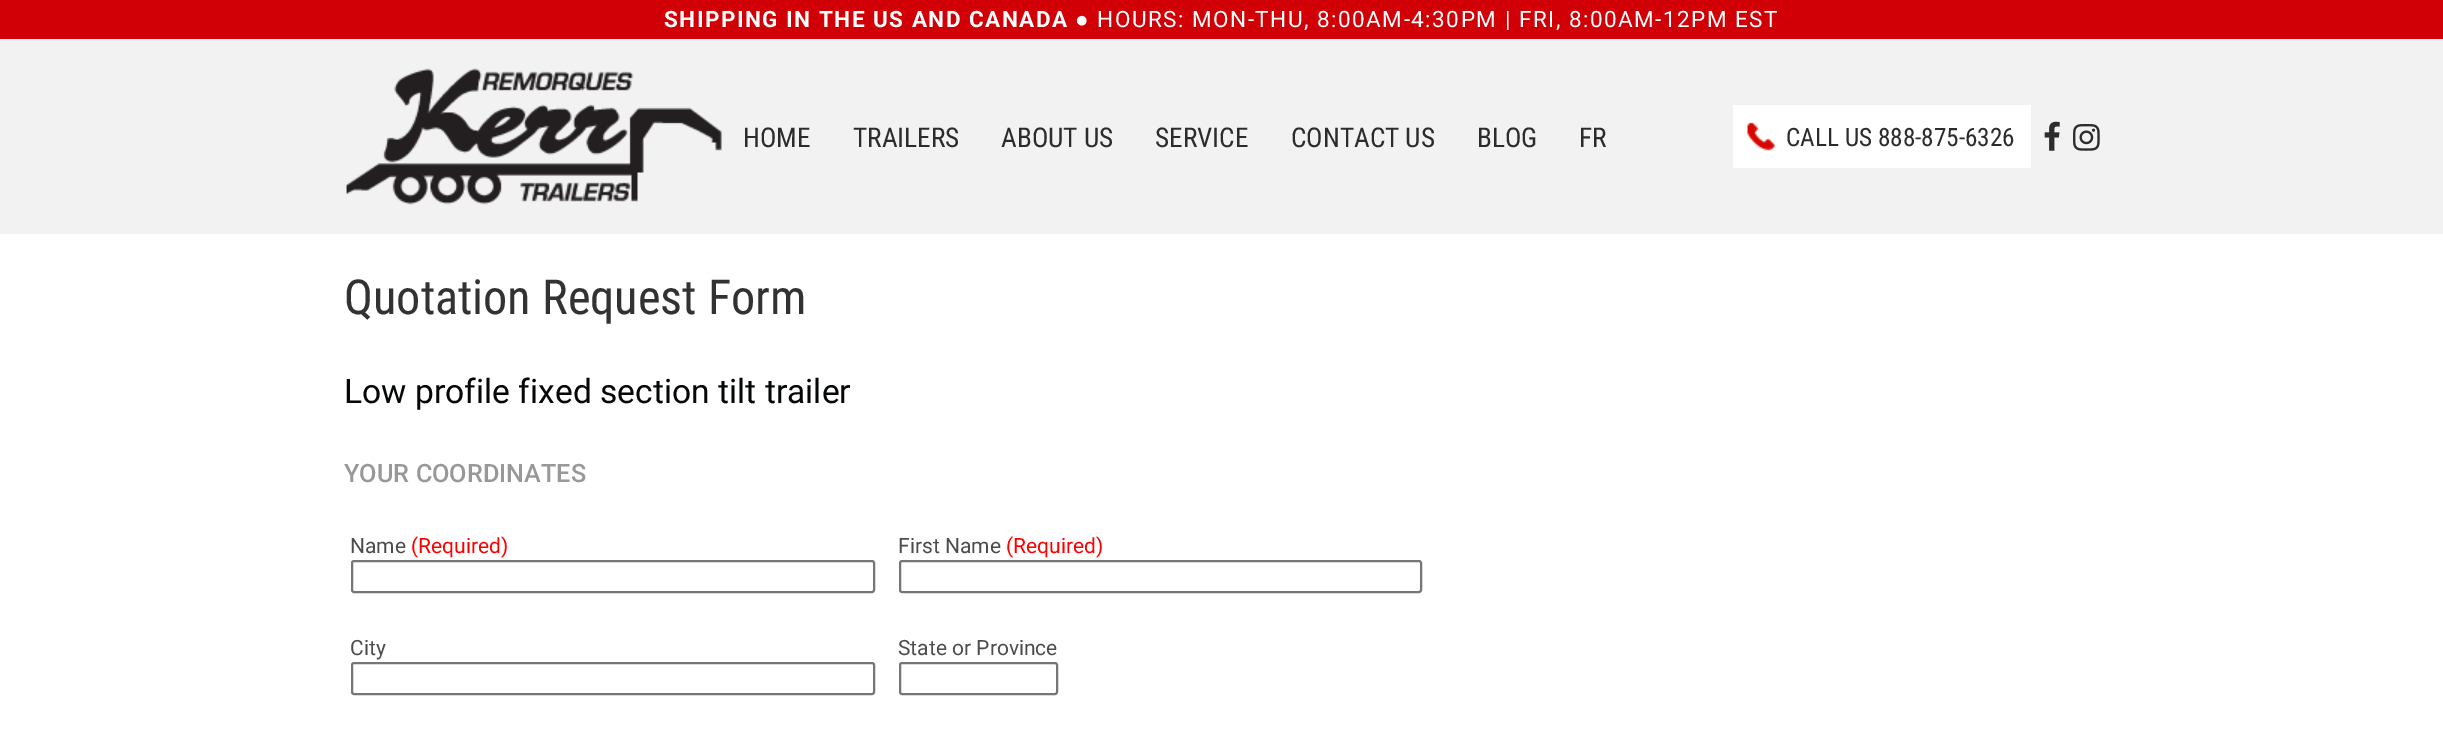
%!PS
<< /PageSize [2443 747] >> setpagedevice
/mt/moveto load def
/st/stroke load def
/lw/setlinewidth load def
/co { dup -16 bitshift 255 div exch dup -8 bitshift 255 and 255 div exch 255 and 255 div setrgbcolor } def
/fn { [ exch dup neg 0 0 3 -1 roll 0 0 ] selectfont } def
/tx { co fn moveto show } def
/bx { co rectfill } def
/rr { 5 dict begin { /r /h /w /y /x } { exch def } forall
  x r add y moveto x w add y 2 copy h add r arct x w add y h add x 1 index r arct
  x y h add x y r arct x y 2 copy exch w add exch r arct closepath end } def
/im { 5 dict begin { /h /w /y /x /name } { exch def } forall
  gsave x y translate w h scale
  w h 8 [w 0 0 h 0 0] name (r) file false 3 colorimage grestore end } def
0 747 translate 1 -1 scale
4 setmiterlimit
0 0 2443 747 16#FFFFFF bx
0 0 2443 39 16#D00006 bx
0 39 2443 195 16#F2F2F2 bx
(media/1.raw) 346 68 376 137 im
1733 105 298 63 16#FFFFFF bx
(media/2.raw) 1747 122 28 29 im
(media/3.raw) 2044 121 16 30 im
(media/4.raw) 2073 124 27 27 im
16#767676 co
2 lw
352 561 522 31 2 rr st
900 561 521 31 2 rr st
352 663 522 31 2 rr st
900 663 157 31 2 rr st
/Roboto-Bold 22.5 fn
16#FFFFFF co
664 27 mt 1.5 0 (SHIPPING IN THE US AND CANADA) ashow
/LiberationSans-Bold 22.5 fn
1075 27 mt 1.5 0 (●) ashow
/Roboto-Regular 22.5 fn
1097 27 mt 1.5 0 (HOURS: MON-THU, 8:00AM-4:30PM | FRI, 8:00AM-12PM EST) ashow
(HOME) 743 147 /RobotoCondensed-Regular 27.25 16#2C2C2C tx
(TRAILERS) 853 147 /RobotoCondensed-Regular 27.25 16#2C2C2C tx
(ABOUT US) 1001 147 /RobotoCondensed-Regular 27.25 16#2C2C2C tx
(SERVICE) 1155 147 /RobotoCondensed-Regular 27.25 16#2C2C2C tx
(CONTACT US) 1291 147 /RobotoCondensed-Regular 27.25 16#2C2C2C tx
(BLOG) 1477 147 /RobotoCondensed-Regular 27.25 16#2C2C2C tx
(FR) 1579 147 /RobotoCondensed-Regular 27.25 16#2C2C2C tx
(CALL US 888-875-6326) 1786 146 /RobotoCondensed-Regular 25.25 16#2C2C2C tx
(Quotation Request Form) 344 314 /RobotoCondensed-Regular 48.25 16#323232 tx
(Low profile fixed section tilt trailer) 344 403 /Roboto-Regular 33.6 16#050708 tx
(YOUR COORDINATES) 344 482 /Roboto-Medium 25.25 16#989898 tx
(Name) 350 553 /Roboto-Regular 21 16#4C4C4C tx
(\(Required\)) 411 553 /Roboto-Regular 21 16#FF0000 tx
(First Name) 898 553 /Roboto-Regular 21 16#4C4C4C tx
(\(Required\)) 1006 553 /Roboto-Regular 21 16#FF0000 tx
(City) 350 655 /Roboto-Regular 21 16#4C4C4C tx
(State or Province) 898 655 /Roboto-Regular 21 16#4C4C4C tx
showpage
